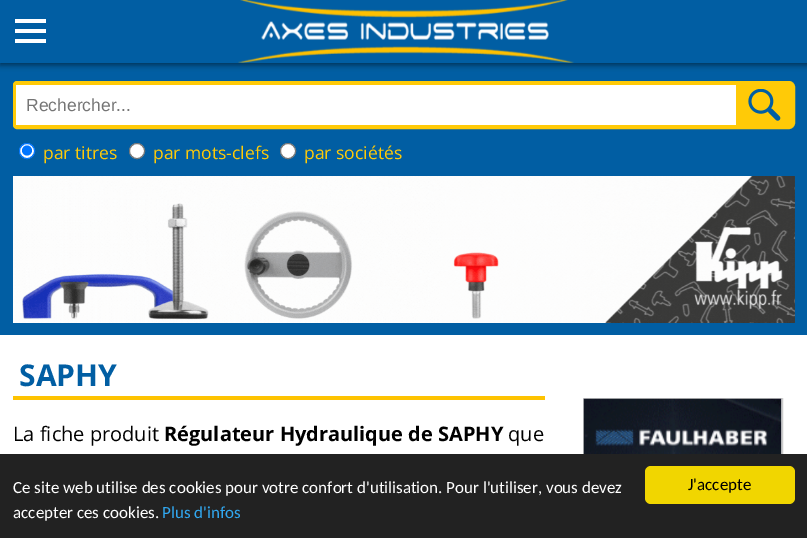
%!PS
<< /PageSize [807 538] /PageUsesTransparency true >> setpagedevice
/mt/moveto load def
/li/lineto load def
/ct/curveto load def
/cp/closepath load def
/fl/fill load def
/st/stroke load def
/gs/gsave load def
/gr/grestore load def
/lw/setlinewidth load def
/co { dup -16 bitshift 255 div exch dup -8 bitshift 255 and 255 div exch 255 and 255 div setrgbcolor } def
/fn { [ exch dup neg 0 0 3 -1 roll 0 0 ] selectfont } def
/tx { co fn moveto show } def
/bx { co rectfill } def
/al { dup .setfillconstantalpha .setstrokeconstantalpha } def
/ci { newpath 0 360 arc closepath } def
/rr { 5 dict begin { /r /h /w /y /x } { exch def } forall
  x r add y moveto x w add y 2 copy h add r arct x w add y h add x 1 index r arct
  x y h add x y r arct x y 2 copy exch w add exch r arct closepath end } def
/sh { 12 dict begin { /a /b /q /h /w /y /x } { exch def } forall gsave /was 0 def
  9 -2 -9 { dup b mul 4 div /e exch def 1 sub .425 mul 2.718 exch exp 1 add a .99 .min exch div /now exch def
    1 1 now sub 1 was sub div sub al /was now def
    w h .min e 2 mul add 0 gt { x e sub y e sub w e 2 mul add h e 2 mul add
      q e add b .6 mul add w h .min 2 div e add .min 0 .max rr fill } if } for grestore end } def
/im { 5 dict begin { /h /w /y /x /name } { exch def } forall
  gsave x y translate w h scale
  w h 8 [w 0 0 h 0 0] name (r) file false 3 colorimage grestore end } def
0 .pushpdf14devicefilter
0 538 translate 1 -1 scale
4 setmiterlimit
0 0 807 538 16#015EA3 bx
0 335 807 119 16#FFFFFF bx
16#000000 co
0 3 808 62 0 3 .5 sh
0 0 807 63 16#015EA3 bx
(media/1.raw) 238 0 336 63 im
15 19 31 4 16#FFFFFF bx
15 29 31 4 16#FFFFFF bx
15 39 31 4 16#FFFFFF bx
16#FFCA07 co
4 lw
17 83 mt 789 83 li 791 83 793 85 793 87 ct 793 123 li 793 125 791 127 789 127 ct 17 127 li 16 127 15 126 15 125 ct 15 85 li 15 84 16 83 17 83 ct cp st
16 85 720 40 16#FFFFFF bx
736 85 55 40 16#FFCA07 bx
(media/2.raw) 748 89 33 32 im
16#FFFFFF co
27 151 7.5 ci gs fl gr
16#0075FF co
1 lw
st
27 150.5 5 ci fl
16#FFFFFF co
137 151 7.5 ci gs fl gr
16#767676 co
st
16#FFFFFF co
288 151 7.5 ci gs fl gr
16#767676 co
st
(media/3.raw) 13 176 782 147 im
13 396 532 4 16#FEC300 bx
16#CCCCCC co
583.5 398.5 199 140 rectstroke
(media/4.raw) 583 398 199 56 im
0 454 807 84 16#222222 bx
16#F1D600 co
645 466 150 38 6 rr fl
(Rechercher...) 26 111 /LiberationSans-Regular 17.5 16#757575 tx
(par titres) 43 159 /OpenSans-Regular 17.5 16#FFCA07 tx
(par mots-clefs) 153 159 /OpenSans-Regular 17.5 16#FFCA07 tx
(par sociétés) 304 159 /OpenSans-Regular 17.5 16#FFCA07 tx
(SAPHY) 19 386 /OpenSans-Bold 30 16#015EA3 tx
(La fiche produit) 13 441 /OpenSans-Regular 20 16#000000 tx
(Régulateur Hydraulique de SAPHY) 164 441 /OpenSans-Bold 20 16#000000 tx
(que) 508 441 /OpenSans-Regular 20 16#000000 tx
(Ce site web utilise des cookies pour votre confort d'utilisation. Pour l'utiliser, vous devez) 13 493 /Carlito-Regular 17 16#FFFFFF tx
(accepter ces cookies.) 13 518 /Carlito-Regular 17 16#FFFFFF tx
(Plus d'infos) 162 518 /Carlito-Regular 17 16#31A8F0 tx
(J'accepte) 688 490 /Carlito-Regular 17 16#000000 tx
.poppdf14devicefilter showpage
